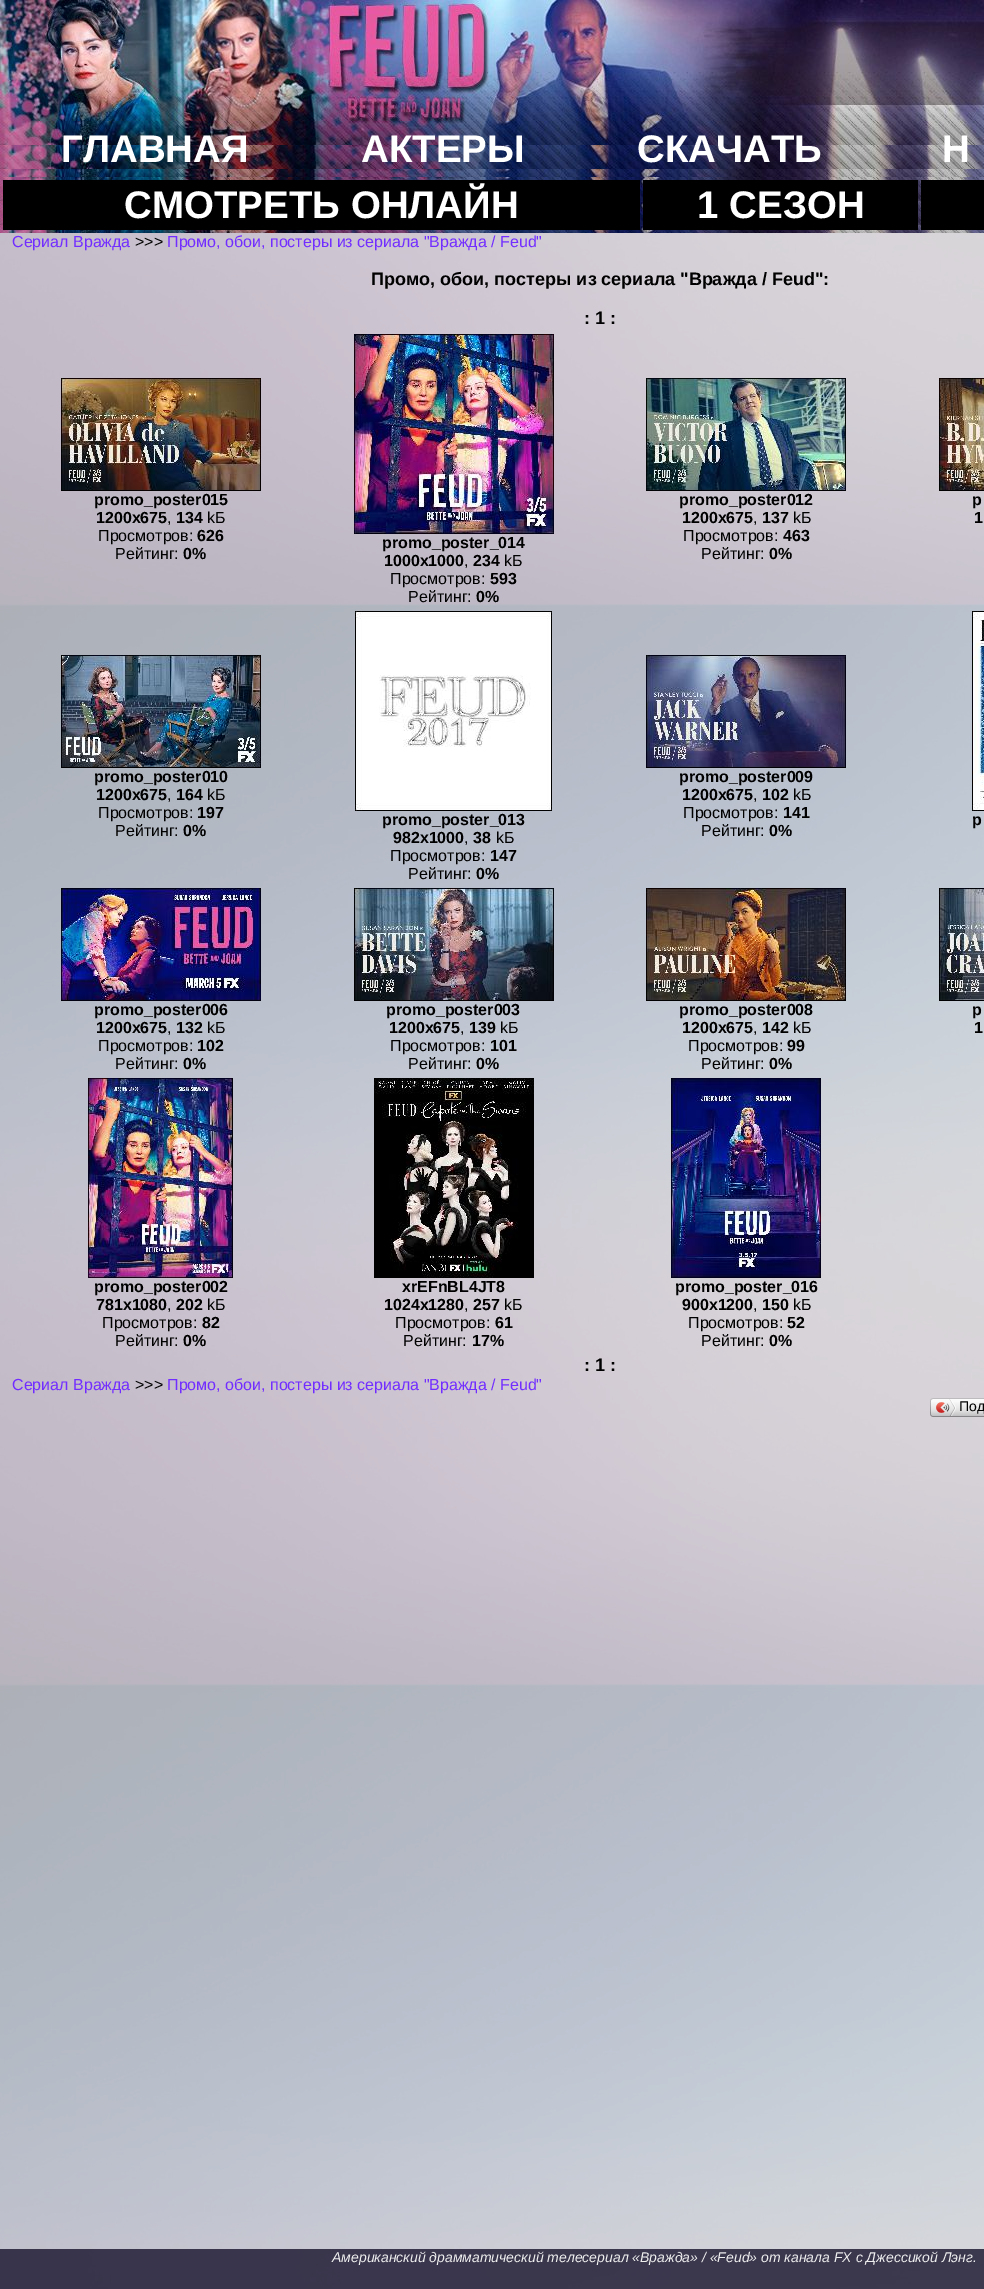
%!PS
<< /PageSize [984 2289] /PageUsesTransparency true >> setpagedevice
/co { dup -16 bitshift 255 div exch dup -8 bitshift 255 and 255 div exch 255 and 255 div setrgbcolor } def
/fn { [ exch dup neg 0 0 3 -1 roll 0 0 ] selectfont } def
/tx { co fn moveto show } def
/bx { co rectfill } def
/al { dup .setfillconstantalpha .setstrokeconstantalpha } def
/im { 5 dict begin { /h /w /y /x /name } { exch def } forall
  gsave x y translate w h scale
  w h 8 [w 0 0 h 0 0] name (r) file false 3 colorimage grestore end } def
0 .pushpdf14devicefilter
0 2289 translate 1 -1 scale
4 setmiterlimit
0 0 984 2289 16#FFFFFF bx
(media/1.raw) 0 233 984 2056 im
(media/2.raw) 0 0 704 121 im
(media/3.raw) 704 0 280 121 im
(media/4.raw) 0 121 984 56 im
(media/4.raw) 0 177 984 56 im
3 180 637 50 16#000000 bx
643 180 275 50 16#000000 bx
921 180 63 50 16#000000 bx
(media/5.raw) 61 378 200 113 im
(media/6.raw) 646 378 200 113 im
(media/7.raw) 939 378 45 113 im
(media/8.raw) 354 334 200 200 im
(media/9.raw) 61 655 200 113 im
(media/10.raw) 646 655 200 113 im
(media/11.raw) 355 611 197 200 im
(media/12.raw) 972 611 12 200 im
(media/13.raw) 61 888 200 113 im
(media/14.raw) 354 888 200 113 im
(media/15.raw) 646 888 200 113 im
(media/16.raw) 939 888 45 113 im
(media/17.raw) 88 1078 145 200 im
(media/18.raw) 374 1078 160 200 im
(media/19.raw) 671 1078 150 200 im
(media/20.raw) 933 1398 51 19 im
(media/21.raw) 930 1398 3 19 im
(media/22.raw) 936 1399 20 17 im
0.8 al
0 2249 984 40 16#15112B bx
1 al
(ГЛАВНАЯ) 61 162 /LiberationSans-Bold 38.5 16#FFFFFF tx
(АКТЕРЫ) 361 162 /LiberationSans-Bold 38.5 16#FFFFFF tx
(СКАЧАТЬ) 637 162 /LiberationSans-Bold 38.5 16#FFFFFF tx
(Н) 942 162 /LiberationSans-Bold 38.5 16#FFFFFF tx
(СМОТРЕТЬ ОНЛАЙН) 124 218 /LiberationSans-Bold 38.5 16#FFFFFF tx
(1 СЕЗОН) 697 218 /LiberationSans-Bold 38.5 16#FFFFFF tx
(Сериал Вражда) 12 247 /LiberationSans-Regular 16 16#722DFF tx
(>>>) 135 247 /LiberationSans-Regular 16 16#000000 tx
(Промо, обои, постеры из сериала "Вражда / Feud") 167 247 /LiberationSans-Regular 16 16#722DFF tx
(Промо, обои, постеры из сериала "Вражда / Feud":) 371 285 /LiberationSans-Bold 18 16#000000 tx
(: 1 :) 584 324 /LiberationSans-Bold 18 16#000000 tx
(promo_poster015) 94 505 /LiberationSans-Bold 16 16#000000 tx
(1200x675) 96 523 /LiberationSans-Bold 16 16#000000 tx
(134) 176 523 /LiberationSans-Bold 16 16#000000 tx
(kБ) 207 523 /LiberationSans-Regular 16 16#000000 tx
(,) 167 523 /LiberationSans-Regular 16 16#000000 tx
(Просмотров:) 98 541 /LiberationSans-Regular 16 16#000000 tx
(626) 197 541 /LiberationSans-Bold 16 16#000000 tx
(Рейтинг:) 115 559 /LiberationSans-Regular 16 16#000000 tx
(0%) 183 559 /LiberationSans-Bold 16 16#000000 tx
(promo_poster012) 679 505 /LiberationSans-Bold 16 16#000000 tx
(1200x675) 682 523 /LiberationSans-Bold 16 16#000000 tx
(137) 762 523 /LiberationSans-Bold 16 16#000000 tx
(kБ) 793 523 /LiberationSans-Regular 16 16#000000 tx
(,) 753 523 /LiberationSans-Regular 16 16#000000 tx
(Просмотров:) 683 541 /LiberationSans-Regular 16 16#000000 tx
(463) 783 541 /LiberationSans-Bold 16 16#000000 tx
(Рейтинг:) 701 559 /LiberationSans-Regular 16 16#000000 tx
(0%) 769 559 /LiberationSans-Bold 16 16#000000 tx
(p) 972 505 /LiberationSans-Bold 16 16#000000 tx
(1) 974 523 /LiberationSans-Bold 16 16#000000 tx
(promo_poster_014) 382 548 /LiberationSans-Bold 16 16#000000 tx
(1000x1000) 384 566 /LiberationSans-Bold 16 16#000000 tx
(234) 473 566 /LiberationSans-Bold 16 16#000000 tx
(kБ) 504 566 /LiberationSans-Regular 16 16#000000 tx
(,) 464 566 /LiberationSans-Regular 16 16#000000 tx
(Просмотров:) 390 584 /LiberationSans-Regular 16 16#000000 tx
(593) 490 584 /LiberationSans-Bold 16 16#000000 tx
(Рейтинг:) 408 602 /LiberationSans-Regular 16 16#000000 tx
(0%) 476 602 /LiberationSans-Bold 16 16#000000 tx
(promo_poster010) 94 782 /LiberationSans-Bold 16 16#000000 tx
(1200x675) 96 800 /LiberationSans-Bold 16 16#000000 tx
(164) 176 800 /LiberationSans-Bold 16 16#000000 tx
(kБ) 207 800 /LiberationSans-Regular 16 16#000000 tx
(,) 167 800 /LiberationSans-Regular 16 16#000000 tx
(Просмотров:) 98 818 /LiberationSans-Regular 16 16#000000 tx
(197) 197 818 /LiberationSans-Bold 16 16#000000 tx
(Рейтинг:) 115 836 /LiberationSans-Regular 16 16#000000 tx
(0%) 183 836 /LiberationSans-Bold 16 16#000000 tx
(promo_poster009) 679 782 /LiberationSans-Bold 16 16#000000 tx
(1200x675) 682 800 /LiberationSans-Bold 16 16#000000 tx
(102) 762 800 /LiberationSans-Bold 16 16#000000 tx
(kБ) 793 800 /LiberationSans-Regular 16 16#000000 tx
(,) 753 800 /LiberationSans-Regular 16 16#000000 tx
(Просмотров:) 683 818 /LiberationSans-Regular 16 16#000000 tx
(141) 783 818 /LiberationSans-Bold 16 16#000000 tx
(Рейтинг:) 701 836 /LiberationSans-Regular 16 16#000000 tx
(0%) 769 836 /LiberationSans-Bold 16 16#000000 tx
(promo_poster_013) 382 825 /LiberationSans-Bold 16 16#000000 tx
(982x1000) 393 843 /LiberationSans-Bold 16 16#000000 tx
(38) 473 843 /LiberationSans-Bold 16 16#000000 tx
(kБ) 496 843 /LiberationSans-Regular 16 16#000000 tx
(,) 464 843 /LiberationSans-Regular 16 16#000000 tx
(Просмотров:) 390 861 /LiberationSans-Regular 16 16#000000 tx
(147) 490 861 /LiberationSans-Bold 16 16#000000 tx
(Рейтинг:) 408 879 /LiberationSans-Regular 16 16#000000 tx
(0%) 476 879 /LiberationSans-Bold 16 16#000000 tx
(p) 972 825 /LiberationSans-Bold 16 16#000000 tx
(promo_poster006) 94 1015 /LiberationSans-Bold 16 16#000000 tx
(1200x675) 96 1033 /LiberationSans-Bold 16 16#000000 tx
(132) 176 1033 /LiberationSans-Bold 16 16#000000 tx
(kБ) 207 1033 /LiberationSans-Regular 16 16#000000 tx
(,) 167 1033 /LiberationSans-Regular 16 16#000000 tx
(Просмотров:) 98 1051 /LiberationSans-Regular 16 16#000000 tx
(102) 197 1051 /LiberationSans-Bold 16 16#000000 tx
(Рейтинг:) 115 1069 /LiberationSans-Regular 16 16#000000 tx
(0%) 183 1069 /LiberationSans-Bold 16 16#000000 tx
(promo_poster003) 386 1015 /LiberationSans-Bold 16 16#000000 tx
(1200x675) 389 1033 /LiberationSans-Bold 16 16#000000 tx
(139) 469 1033 /LiberationSans-Bold 16 16#000000 tx
(kБ) 500 1033 /LiberationSans-Regular 16 16#000000 tx
(,) 460 1033 /LiberationSans-Regular 16 16#000000 tx
(Просмотров:) 390 1051 /LiberationSans-Regular 16 16#000000 tx
(101) 490 1051 /LiberationSans-Bold 16 16#000000 tx
(Рейтинг:) 408 1069 /LiberationSans-Regular 16 16#000000 tx
(0%) 476 1069 /LiberationSans-Bold 16 16#000000 tx
(promo_poster008) 679 1015 /LiberationSans-Bold 16 16#000000 tx
(1200x675) 682 1033 /LiberationSans-Bold 16 16#000000 tx
(142) 762 1033 /LiberationSans-Bold 16 16#000000 tx
(kБ) 793 1033 /LiberationSans-Regular 16 16#000000 tx
(,) 753 1033 /LiberationSans-Regular 16 16#000000 tx
(Просмотров:) 688 1051 /LiberationSans-Regular 16 16#000000 tx
(99) 787 1051 /LiberationSans-Bold 16 16#000000 tx
(Рейтинг:) 701 1069 /LiberationSans-Regular 16 16#000000 tx
(0%) 769 1069 /LiberationSans-Bold 16 16#000000 tx
(p) 972 1015 /LiberationSans-Bold 16 16#000000 tx
(1) 974 1033 /LiberationSans-Bold 16 16#000000 tx
(promo_poster002) 94 1292 /LiberationSans-Bold 16 16#000000 tx
(781x1080) 96 1310 /LiberationSans-Bold 16 16#000000 tx
(202) 176 1310 /LiberationSans-Bold 16 16#000000 tx
(kБ) 207 1310 /LiberationSans-Regular 16 16#000000 tx
(,) 167 1310 /LiberationSans-Regular 16 16#000000 tx
(Просмотров:) 102 1328 /LiberationSans-Regular 16 16#000000 tx
(82) 202 1328 /LiberationSans-Bold 16 16#000000 tx
(Рейтинг:) 115 1346 /LiberationSans-Regular 16 16#000000 tx
(0%) 183 1346 /LiberationSans-Bold 16 16#000000 tx
(xrEFnBL4JT8) 402 1292 /LiberationSans-Bold 16 16#000000 tx
(1024x1280) 384 1310 /LiberationSans-Bold 16 16#000000 tx
(257) 473 1310 /LiberationSans-Bold 16 16#000000 tx
(kБ) 504 1310 /LiberationSans-Regular 16 16#000000 tx
(,) 464 1310 /LiberationSans-Regular 16 16#000000 tx
(Просмотров:) 395 1328 /LiberationSans-Regular 16 16#000000 tx
(61) 495 1328 /LiberationSans-Bold 16 16#000000 tx
(Рейтинг:) 403 1346 /LiberationSans-Regular 16 16#000000 tx
(17%) 472 1346 /LiberationSans-Bold 16 16#000000 tx
(promo_poster_016) 675 1292 /LiberationSans-Bold 16 16#000000 tx
(900x1200) 682 1310 /LiberationSans-Bold 16 16#000000 tx
(150) 762 1310 /LiberationSans-Bold 16 16#000000 tx
(kБ) 793 1310 /LiberationSans-Regular 16 16#000000 tx
(,) 753 1310 /LiberationSans-Regular 16 16#000000 tx
(Просмотров:) 688 1328 /LiberationSans-Regular 16 16#000000 tx
(52) 787 1328 /LiberationSans-Bold 16 16#000000 tx
(Рейтинг:) 701 1346 /LiberationSans-Regular 16 16#000000 tx
(0%) 769 1346 /LiberationSans-Bold 16 16#000000 tx
(: 1 :) 584 1371 /LiberationSans-Bold 18 16#000000 tx
(Сериал Вражда) 12 1390 /LiberationSans-Regular 16 16#722DFF tx
(>>>) 135 1390 /LiberationSans-Regular 16 16#000000 tx
(Промо, обои, постеры из сериала "Вражда / Feud") 167 1390 /LiberationSans-Regular 16 16#722DFF tx
(Под) 959 1411 /LiberationSans-Regular 14 16#000000 tx
(Американский драмматический телесериал «Вражда» / «Feud» от канала FX с Джессикой Лэнг.) 332 2262 /LiberationSans-Italic 14 16#EEEEEE tx
.poppdf14devicefilter showpage
